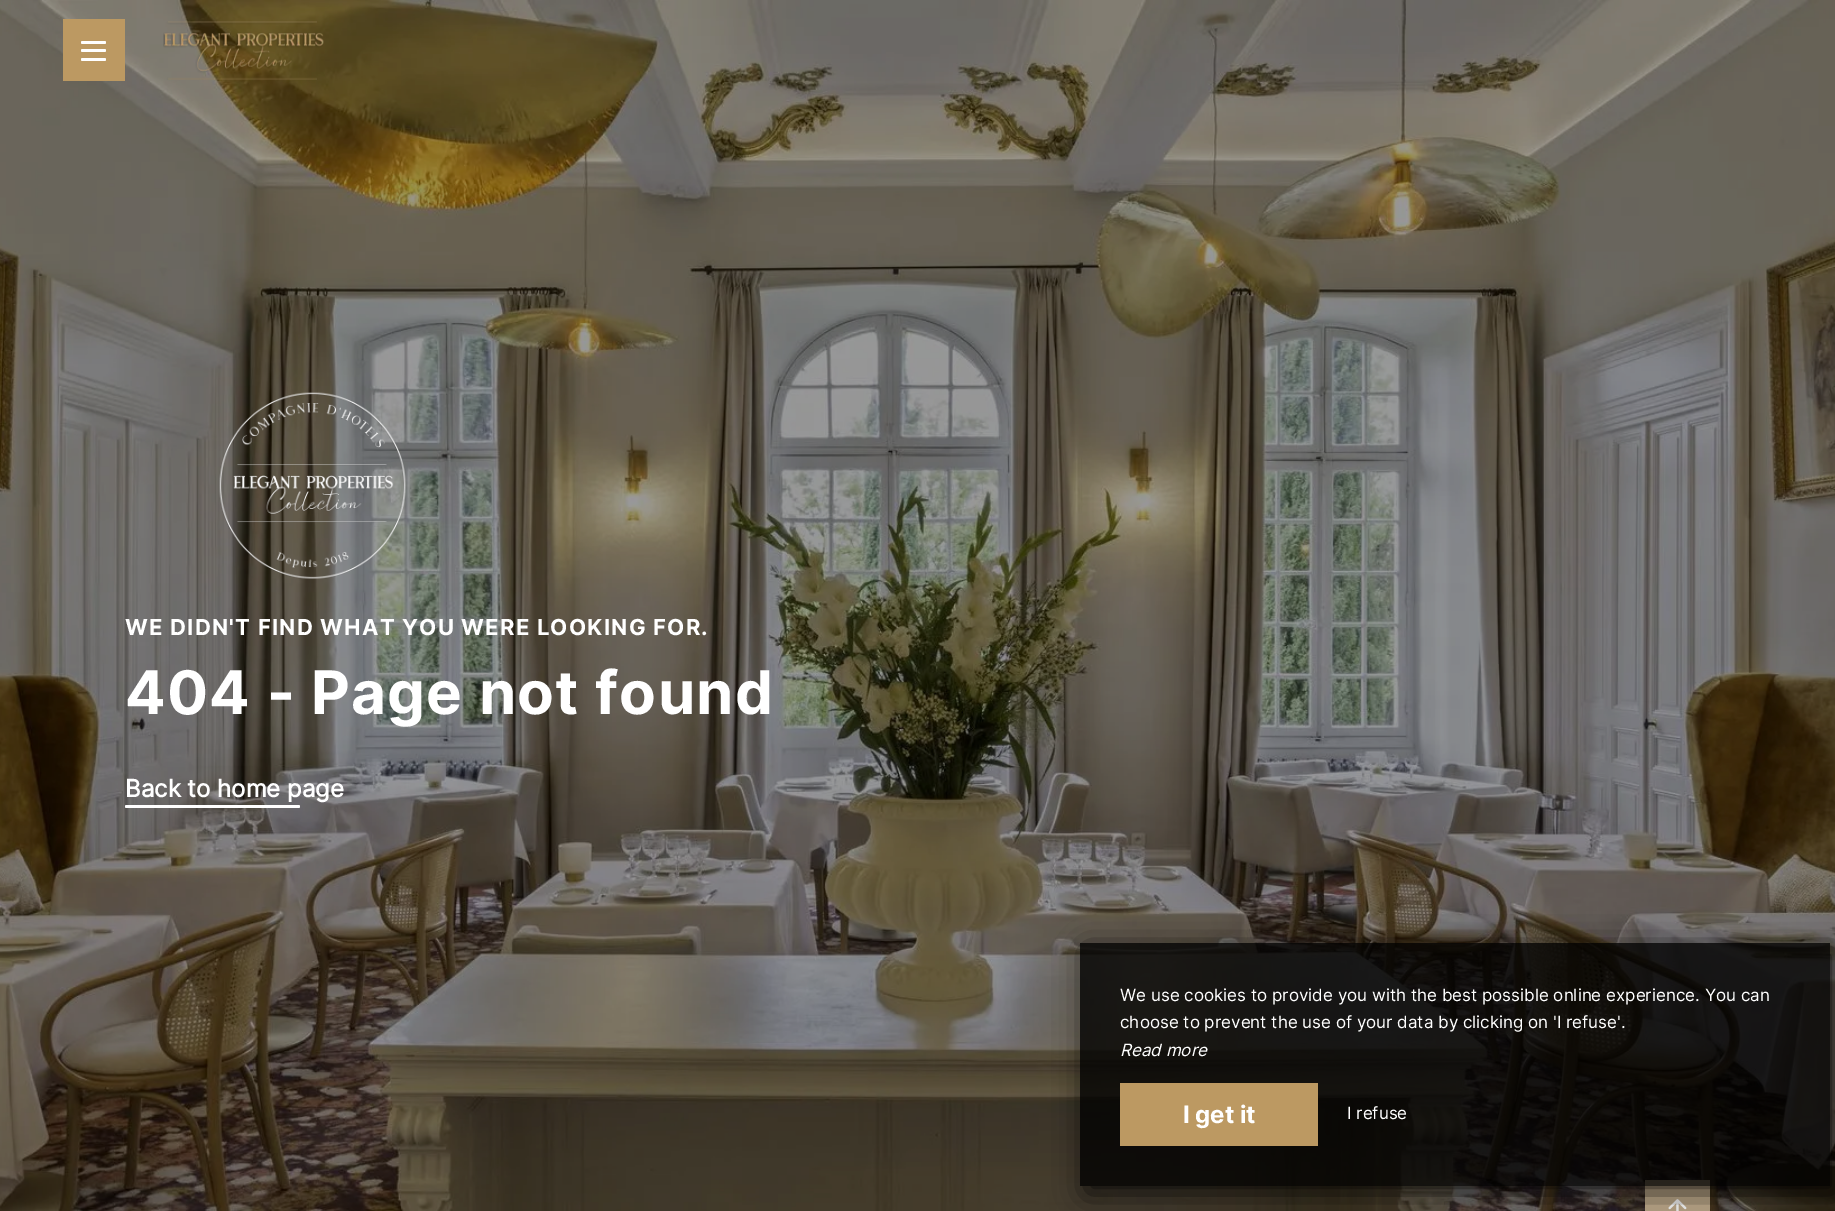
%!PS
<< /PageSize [1835 1211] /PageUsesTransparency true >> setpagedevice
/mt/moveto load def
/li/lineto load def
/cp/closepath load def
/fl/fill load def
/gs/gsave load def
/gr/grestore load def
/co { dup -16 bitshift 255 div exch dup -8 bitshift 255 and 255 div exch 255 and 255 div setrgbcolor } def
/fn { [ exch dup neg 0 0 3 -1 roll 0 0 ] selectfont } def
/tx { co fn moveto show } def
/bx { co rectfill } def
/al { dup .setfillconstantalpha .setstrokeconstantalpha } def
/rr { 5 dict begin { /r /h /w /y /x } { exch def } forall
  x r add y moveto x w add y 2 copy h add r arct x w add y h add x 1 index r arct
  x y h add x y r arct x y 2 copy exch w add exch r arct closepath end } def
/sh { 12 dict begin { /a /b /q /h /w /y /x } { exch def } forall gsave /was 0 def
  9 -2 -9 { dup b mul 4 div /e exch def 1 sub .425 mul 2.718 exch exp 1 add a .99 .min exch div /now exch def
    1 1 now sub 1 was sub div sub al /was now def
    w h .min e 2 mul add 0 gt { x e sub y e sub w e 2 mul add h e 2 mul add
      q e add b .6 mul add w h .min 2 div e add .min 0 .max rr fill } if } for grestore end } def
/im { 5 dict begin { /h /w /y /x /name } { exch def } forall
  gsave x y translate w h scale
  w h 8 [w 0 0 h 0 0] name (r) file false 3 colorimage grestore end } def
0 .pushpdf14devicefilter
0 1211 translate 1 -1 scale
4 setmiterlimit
0 0 1835 1211 16#FFFFFF bx
(media/2.raw) 0 0 1835 1211 im
63 19 62 62 16#BC9962 bx
16#FFFFFF co
81 41 25 3 1.5 rr fl
81 49 25 3 1.5 rr fl
81 58 25 3 1.5 rr fl
(media/1.raw) 163 21 161 59 im
(media/3.raw) 219 392 187 187 im
125 805 175 3 1.5 rr fl
1645 1180 65 31 16#C3AE8E bx
(media/4.raw) 1668 1199 19 12 im
gs
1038 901 mt 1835 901 li 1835 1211 li 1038 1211 li cp 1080 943 mt 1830 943 li 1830 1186 li 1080 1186 li cp eoclip newpath
16#000000 co
1086 949 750 244 0 15.5 .8 sh
gr
0.8 al
1080 943 750 243 16#000000 bx
1 al
1120 1083 198 63 16#BC9962 bx
/Inter-Bold 22 fn
16#FFFFFF co
125 635 mt 1.25 0 (WE DIDN'T FIND WHAT YOU WERE LOOKING FOR.) ashow
/Inter-Bold 60 fn
125 714 mt 1.25 0 (404 - Page not found) ashow
(Back to home page) 125 797 /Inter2-Bold 24 16#FFFFFF tx
(We use cookies to provide you with the best possible online experience. You can) 1120 1001 /Inter-Regular 17 16#FFFFFF tx
(choose to prevent the use of your data by clicking on 'I refuse'.) 1120 1028 /Inter-Regular 17 16#FFFFFF tx
(Read more) 1120 1056 /Inter-Italic 17 16#FFFFFF tx
(I get it) 1183 1123 /Inter-Bold 24 16#FFFFFF tx
(I refuse) 1347 1119 /Inter-Regular 17 16#FFFFFF tx
.poppdf14devicefilter showpage
